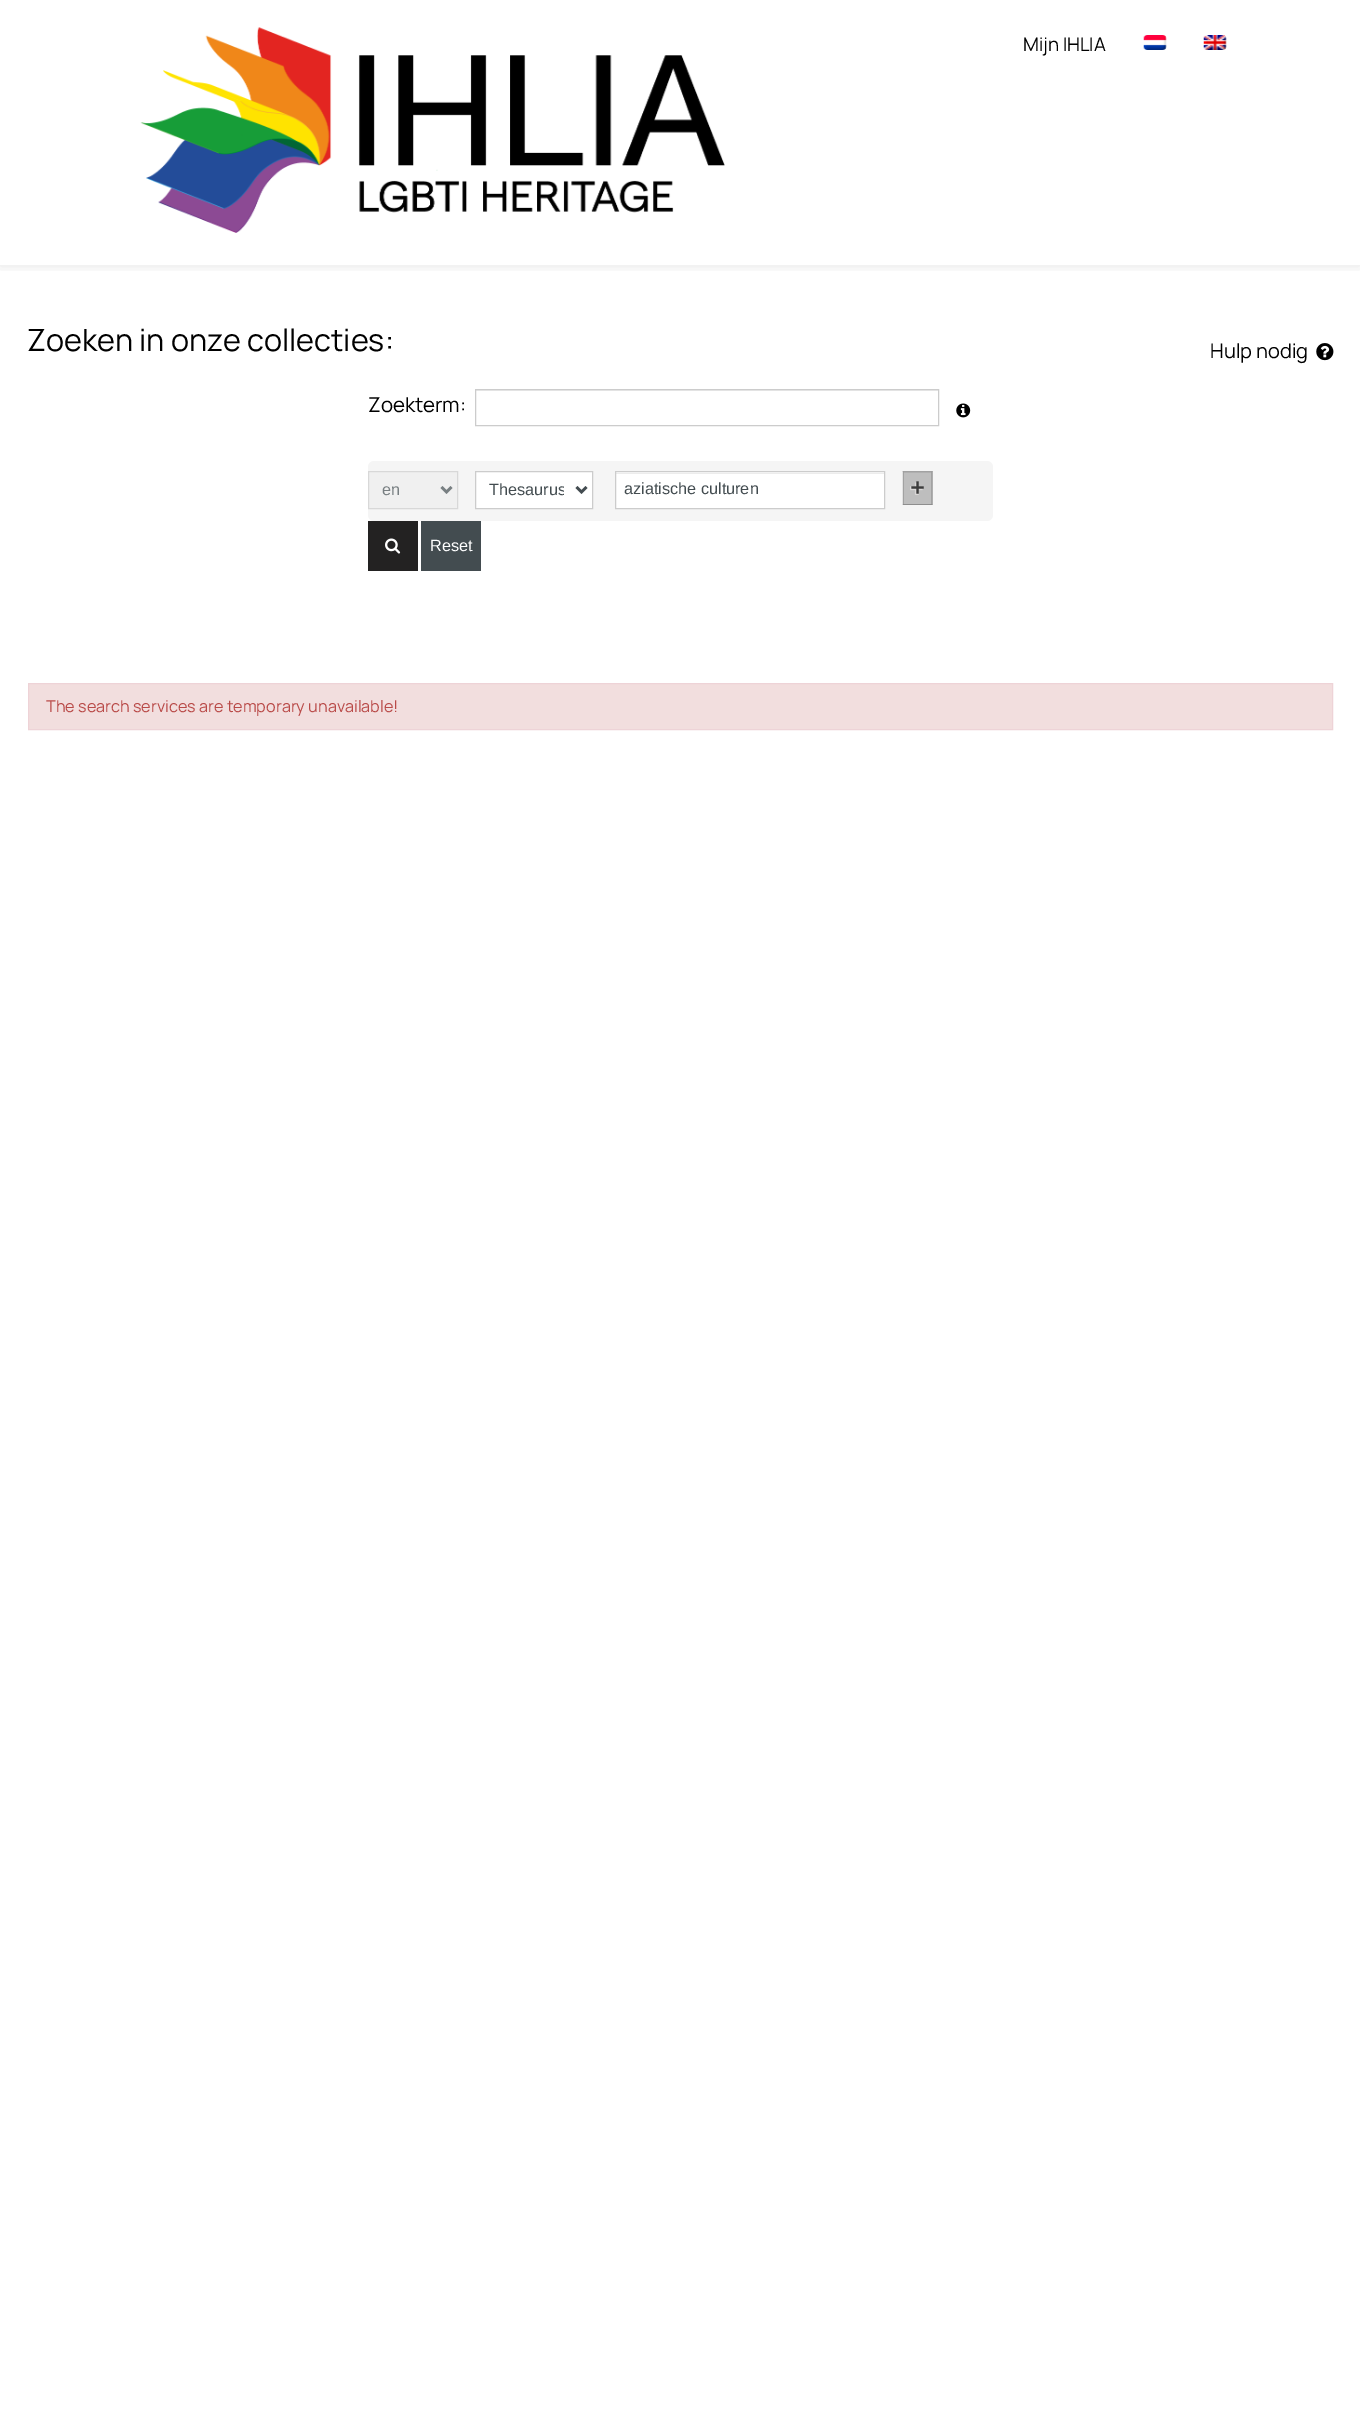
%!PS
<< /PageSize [1360 2412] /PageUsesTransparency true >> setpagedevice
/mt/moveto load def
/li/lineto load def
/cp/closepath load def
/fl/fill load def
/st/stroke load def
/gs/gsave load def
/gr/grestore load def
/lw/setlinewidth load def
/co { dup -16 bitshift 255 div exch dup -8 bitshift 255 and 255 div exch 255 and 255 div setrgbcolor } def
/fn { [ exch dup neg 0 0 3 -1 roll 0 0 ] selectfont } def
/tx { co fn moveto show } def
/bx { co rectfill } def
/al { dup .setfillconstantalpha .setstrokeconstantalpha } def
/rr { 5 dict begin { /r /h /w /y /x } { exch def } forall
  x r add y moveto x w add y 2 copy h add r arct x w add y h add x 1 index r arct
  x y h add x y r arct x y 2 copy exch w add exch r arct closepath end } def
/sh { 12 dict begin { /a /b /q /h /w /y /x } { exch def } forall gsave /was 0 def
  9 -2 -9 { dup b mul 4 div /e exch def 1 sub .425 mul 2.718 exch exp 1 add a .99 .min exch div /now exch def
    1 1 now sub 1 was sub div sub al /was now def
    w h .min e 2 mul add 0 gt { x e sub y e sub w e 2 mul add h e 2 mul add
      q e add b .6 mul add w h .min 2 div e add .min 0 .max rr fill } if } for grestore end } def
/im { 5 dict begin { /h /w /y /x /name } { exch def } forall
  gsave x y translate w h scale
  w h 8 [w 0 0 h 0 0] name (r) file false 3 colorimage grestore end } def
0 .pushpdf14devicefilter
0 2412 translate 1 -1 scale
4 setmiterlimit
0 0 1360 2412 16#FFFFFF bx
gs
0 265 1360 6 rectclip
16#000000 co
0 1 1360 265 0 6 .1 sh
gr
(media/1.raw) 140 27 585 206 im
(media/2.raw) 1143 35 24 15 im
(media/3.raw) 1203 35 24 15 im
(media/4.raw) 1316 343 18 18 im
476 390 462 1 16#ECECEC bx
16#CCCCCC co
475.5 389.5 463 36 rectstroke
(media/5.raw) 956 403 15 15 im
16#F5F5F5 co
368 461 625 60 6 rr fl
16#F0F0F0 co
368.5 471.5 mt 457.5 471.5 li 457.5 508.5 li 368.5 508.5 li cp gs fl gr
16#D8D8D8 co
st
16#787F82 co
2.5 lw
441.5 487 mt 446.5 492 li 451.5 487 li st
16#FFFFFF co
475.5 471.5 mt 592.5 471.5 li 592.5 508.5 li 475.5 508.5 li cp gs fl gr
16#CCCCCC co
1 lw
st
16#434C50 co
2.5 lw
576.5 487 mt 581.5 492 li 586.5 487 li st
616 472 268 36 16#FFFFFF bx
616 473 268 1 16#ECECEC bx
16#CCCCCC co
1 lw
615.5 471.5 269 37 rectstroke
903 471 30 34 16#BEBEBE bx
(media/6.raw) 910 481 14 14 im
16#A2A2A2 co
902.5 471 mt 932.5 471 li 931 472.5 li 904 472.5 li cp fl
0.15 al
16#000000 co
932.5 471 mt 932.5 505 li 931 504 li 931 472.5 li cp fl
0.25 al
932.5 505 mt 902.5 505 li 904 504 li 931 504 li cp fl
0.15 al
902.5 505 mt 902.5 471 li 904 472.5 li 904 504 li cp fl
1 al
368 521 50 50 16#232222 bx
(media/7.raw) 385 538 16 16 im
421 521 60 50 16#434C50 bx
16#F2DEDE co
28.5 683.5 mt 1332.5 683.5 li 1332.5 729.5 li 28.5 729.5 li cp gs fl gr
16#EED3D7 co
st
(Mijn IHLIA) 1023 51 /Manrope-Regular 18.75 16#000000 tx
(Zoeken in onze collecties:) 27 351 /Manrope-Regular 30.6 16#000000 tx
(Hulp nodig) 1210 358 /Manrope-Regular 20 16#000000 tx
(Zoekterm:) 368 412 /Manrope-Regular 20.5 16#000000 tx
(en) 382 495 /LiberationSans-Regular 16.25 16#787F82 tx
gs
489 479 75 21 rectclip
(Thesaurus) 489 495 /LiberationSans-Regular 16.25 16#434C50 tx
gr
(aziatische culturen) 624 494 /LiberationSans-Regular 16.25 16#434C50 tx
(Reset) 430 551 /LiberationSans-Regular 16.25 16#FFFFFF tx
(The search services are temporary unavailable!) 46 712 /Manrope-Regular 16.25 16#B94A48 tx
.poppdf14devicefilter showpage
